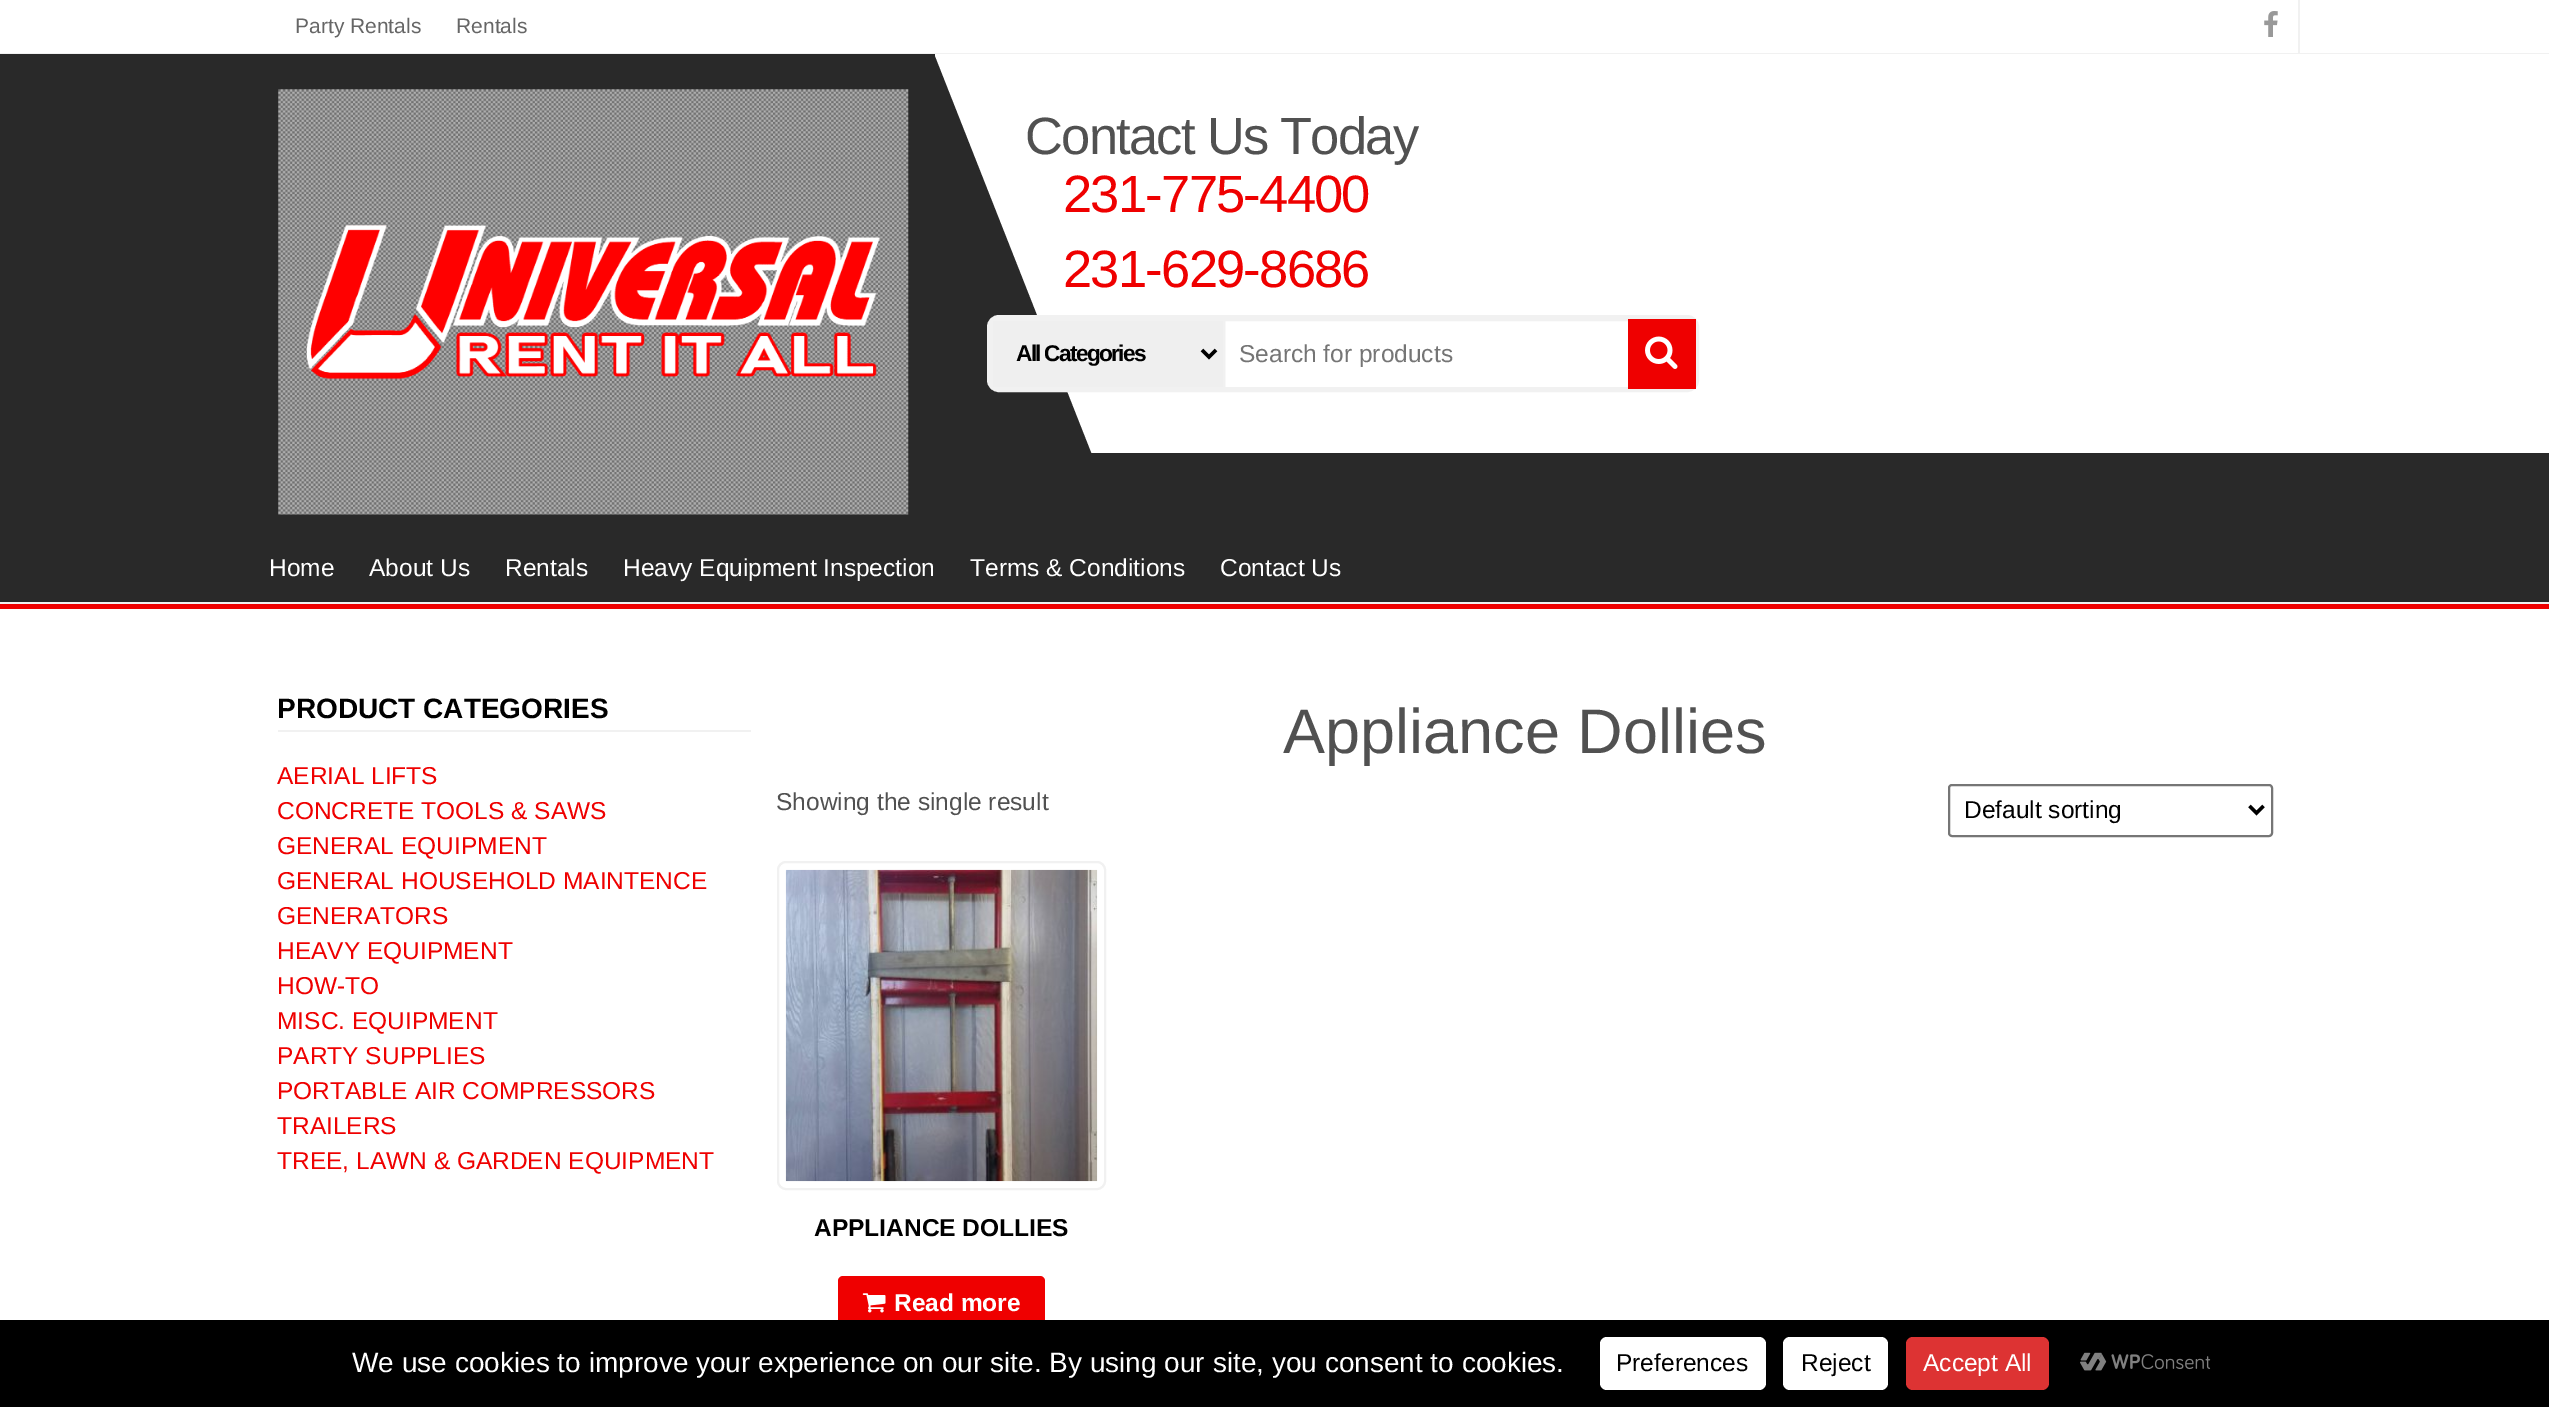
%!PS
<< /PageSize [2549 1407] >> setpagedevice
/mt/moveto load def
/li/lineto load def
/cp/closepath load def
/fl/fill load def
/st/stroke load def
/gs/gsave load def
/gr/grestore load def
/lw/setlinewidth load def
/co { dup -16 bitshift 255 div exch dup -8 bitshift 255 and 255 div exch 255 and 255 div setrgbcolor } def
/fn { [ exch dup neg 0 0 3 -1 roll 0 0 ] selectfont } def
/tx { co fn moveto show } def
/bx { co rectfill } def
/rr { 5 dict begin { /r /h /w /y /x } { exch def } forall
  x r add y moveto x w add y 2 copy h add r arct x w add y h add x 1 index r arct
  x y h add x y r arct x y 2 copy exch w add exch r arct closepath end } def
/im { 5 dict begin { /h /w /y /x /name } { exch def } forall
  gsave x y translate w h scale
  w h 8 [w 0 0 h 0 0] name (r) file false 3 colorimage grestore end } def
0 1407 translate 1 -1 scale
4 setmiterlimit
0 0 2549 1407 16#FFFFFF bx
0 604 2549 5 16#EF0000 bx
0 53 2549 1 16#F1F1F1 bx
2298 0 2 53 16#F1F1F1 bx
(media/1.raw) 2264 11 14 26 im
0 54 2549 548 16#292929 bx
0 602 2549 2 16#F1F1F1 bx
(media/2.raw) 278 89 631 426 im
935 54 1614 399 16#FFFFFF bx
16#292929 co
934 455 mt 934 54 li 1092 455 li cp fl
16#F1F1F1 co
4 lw
989 317 708 73 10 rr st
16#EFEFEF co
992 320 mt 1224 320 li 1224 388 li 992 388 li cp gs fl gr
16#F1F1F1 co
2 lw
st
16#000000 co
3.5 lw
1202 350 mt 1209 357 li 1216 350 li st
16#F1F1F1 co
2 lw
1224 320 469 68 rectstroke
1628 319 68 70 16#EF0000 bx
(media/3.raw) 1645 336 33 33 im
278 730 473 2 16#F1F1F1 bx
16#767676 co
1949 785 323 51 3 rr st
16#000000 co
3.5 lw
2249.5 806 mt 2256.5 813 li 2263.5 806 li st
16#F1F1F1 co
2 lw
778 862 327 327 8 rr st
(media/4.raw) 785 869 313 313 im
16#EF0000 co
838 1276 207 54 5 rr fl
(media/5.raw) 862 1293 24 20 im
0 1320 2549 87 16#000000 bx
16#FFFFFF co
1600 1337 166 53 7 rr fl
1783 1337 105 53 7 rr fl
16#DD3333 co
1906 1337 143 53 7 rr fl
(media/6.raw) 2080 1352 131 19 im
(Party Rentals) 295 33 /LiberationSans-Regular 21 16#666666 tx
(Rentals) 456 33 /LiberationSans-Regular 21 16#666666 tx
/LiberationSans-Regular 52.5 fn
16#515151 co
1025 154 mt -1.75 0 (Contact Us Today) ashow
16#EF0000 co
1063 212 mt -1.75 0 (231-775-4400) ashow
1063 287 mt -1.75 0 (231-629-8686) ashow
/LiberationSans-Bold 22.75 fn
16#000000 co
1016 361 mt -1.75 0 (All Categories) ashow
(Search for products) 1239 362 /LiberationSans-Regular 24.5 16#757575 tx
(Home) 269 576 /LiberationSans-Regular 24.5 16#FFFFFF tx
(About Us) 369 576 /LiberationSans-Regular 24.5 16#FFFFFF tx
(Rentals) 505 576 /LiberationSans-Regular 24.5 16#FFFFFF tx
(Heavy Equipment Inspection) 623 576 /LiberationSans-Regular 24.5 16#FFFFFF tx
(Terms & Conditions) 970 576 /LiberationSans-Regular 24.5 16#FFFFFF tx
(Contact Us) 1220 576 /LiberationSans-Regular 24.5 16#FFFFFF tx
(PRODUCT CATEGORIES) 277 718 /LiberationSans-Bold 28 16#000000 tx
(AERIAL LIFTS) 277 784 /LiberationSans-Regular 24.5 16#EF0000 tx
(CONCRETE TOOLS & SAWS) 277 819 /LiberationSans-Regular 24.5 16#EF0000 tx
(GENERAL EQUIPMENT) 277 854 /LiberationSans-Regular 24.5 16#EF0000 tx
(GENERAL HOUSEHOLD MAINTENCE) 277 889 /LiberationSans-Regular 24.5 16#EF0000 tx
(GENERATORS) 277 924 /LiberationSans-Regular 24.5 16#EF0000 tx
(HEAVY EQUIPMENT) 277 959 /LiberationSans-Regular 24.5 16#EF0000 tx
(HOW-TO) 277 994 /LiberationSans-Regular 24.5 16#EF0000 tx
(MISC. EQUIPMENT) 277 1029 /LiberationSans-Regular 24.5 16#EF0000 tx
(PARTY SUPPLIES) 277 1064 /LiberationSans-Regular 24.5 16#EF0000 tx
(PORTABLE AIR COMPRESSORS) 277 1099 /LiberationSans-Regular 24.5 16#EF0000 tx
(TRAILERS) 277 1134 /LiberationSans-Regular 24.5 16#EF0000 tx
(TREE, LAWN & GARDEN EQUIPMENT) 277 1169 /LiberationSans-Regular 24.5 16#EF0000 tx
(Appliance Dollies) 1283 753 /LiberationSans-Regular 63 16#515151 tx
(Showing the single result) 776 810 /LiberationSans-Regular 24.5 16#515151 tx
(Default sorting) 1964 818 /LiberationSans-Regular 24.5 16#000000 tx
(APPLIANCE DOLLIES) 814 1236 /LiberationSans-Bold 24.5 16#000000 tx
(Read more) 894 1311 /LiberationSans-Bold 24.5 16#FFFFFF tx
(We use cookies to improve your experience on our site. By using our site, you consent to cookies.) 352 1372 /LiberationSans-Regular 28 16#FFFFFF tx
(Preferences) 1616 1371 /LiberationSans-Regular 24.5 16#000000 tx
(Reject) 1801 1371 /LiberationSans-Regular 24.5 16#000000 tx
(Accept All) 1923 1371 /LiberationSans-Regular 24.5 16#FFFFFF tx
showpage
